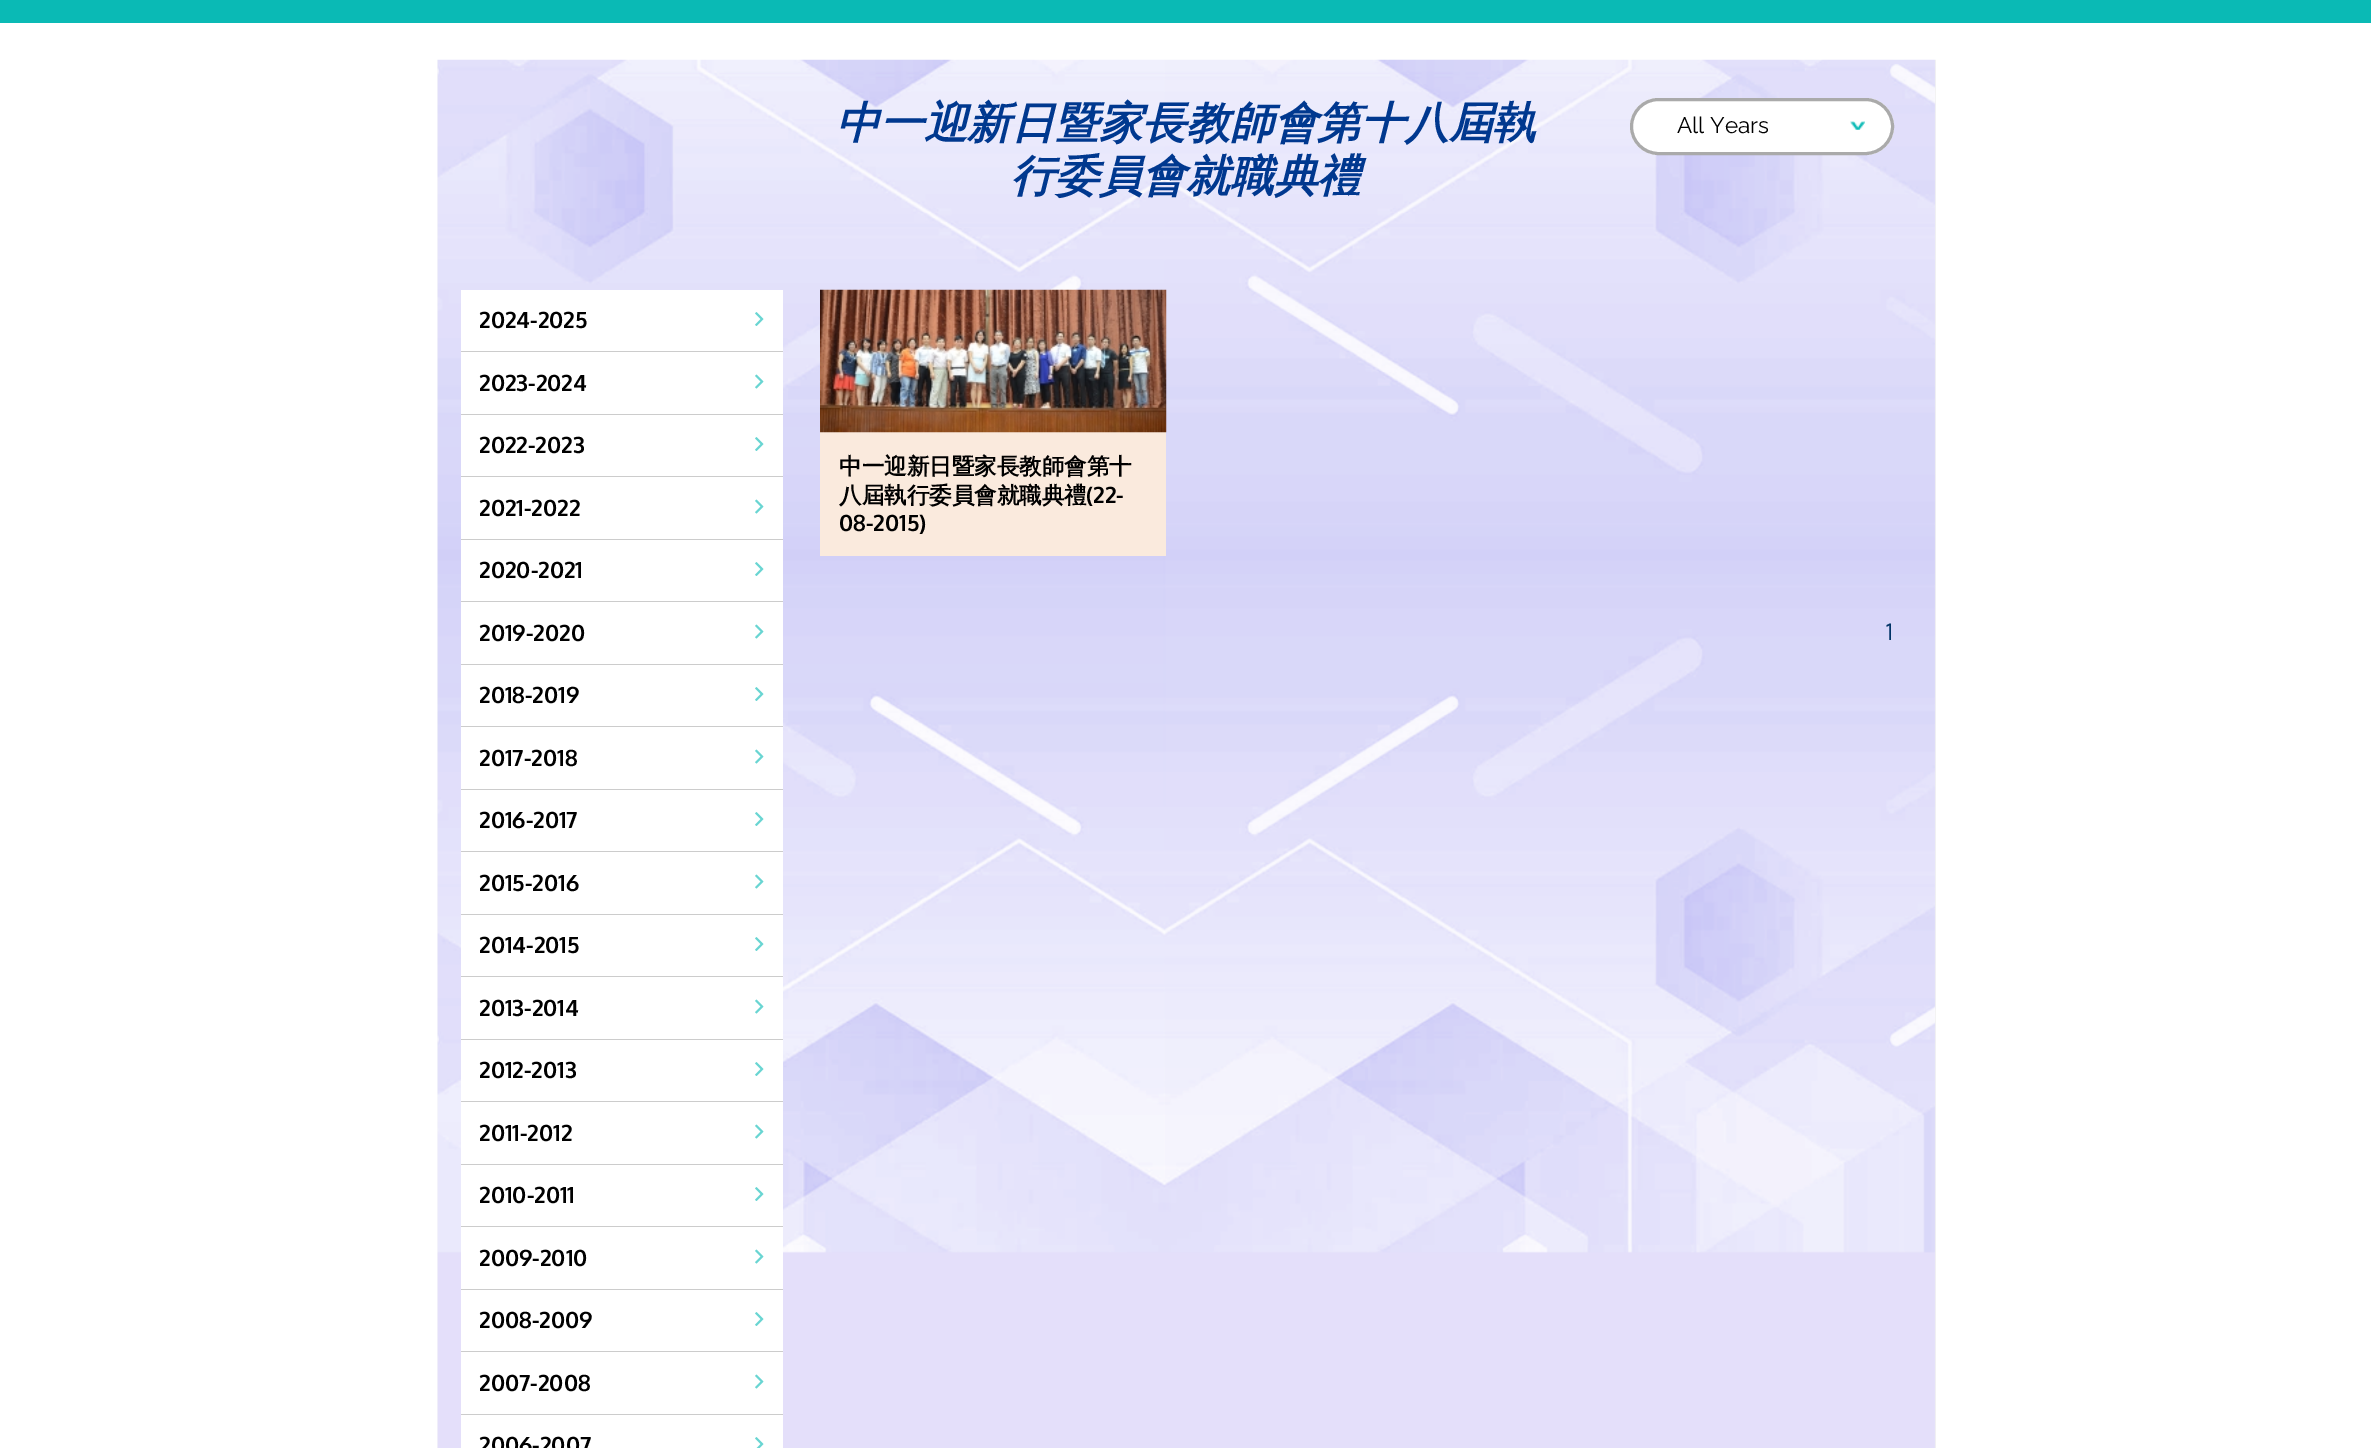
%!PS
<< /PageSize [2371 1448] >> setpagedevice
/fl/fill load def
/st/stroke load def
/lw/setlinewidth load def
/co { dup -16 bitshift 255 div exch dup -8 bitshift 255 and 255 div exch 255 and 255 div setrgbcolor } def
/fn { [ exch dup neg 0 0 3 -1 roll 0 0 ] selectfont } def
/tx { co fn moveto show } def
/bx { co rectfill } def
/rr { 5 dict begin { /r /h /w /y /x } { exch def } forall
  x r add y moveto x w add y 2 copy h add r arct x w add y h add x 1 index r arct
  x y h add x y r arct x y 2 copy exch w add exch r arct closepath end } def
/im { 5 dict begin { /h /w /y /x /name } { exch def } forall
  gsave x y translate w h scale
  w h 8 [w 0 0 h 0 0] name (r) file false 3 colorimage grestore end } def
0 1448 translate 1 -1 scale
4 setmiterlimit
0 0 2371 1448 16#FFFFFF bx
0 0 2371 23 16#0ABAB5 bx
(media/1.raw) 437 59 1499 1389 im
16#FFFFFF co
1630 98 264 57 28.5 rr fl
(media/2.raw) 1850 121 15 9 im
16#AAAAAA co
3 lw
1631.5 99.5 261 54 27 rr st
461 290 322 1158 16#FFFFFF bx
461 351 322 1 16#CCCCCC bx
(media/3.raw) 755 312 9 14 im
461 414 322 1 16#CCCCCC bx
(media/4.raw) 755 374 9 15 im
461 476 322 1 16#CCCCCC bx
(media/3.raw) 755 437 9 14 im
461 539 322 1 16#CCCCCC bx
(media/4.raw) 755 499 9 15 im
461 601 322 1 16#CCCCCC bx
(media/3.raw) 755 562 9 14 im
461 664 322 1 16#CCCCCC bx
(media/4.raw) 755 624 9 15 im
461 726 322 1 16#CCCCCC bx
(media/3.raw) 755 687 9 14 im
461 789 322 1 16#CCCCCC bx
(media/4.raw) 755 749 9 15 im
461 851 322 1 16#CCCCCC bx
(media/3.raw) 755 812 9 14 im
461 914 322 1 16#CCCCCC bx
(media/4.raw) 755 874 9 15 im
461 976 322 1 16#CCCCCC bx
(media/3.raw) 755 937 9 14 im
461 1039 322 1 16#CCCCCC bx
(media/4.raw) 755 999 9 15 im
461 1101 322 1 16#CCCCCC bx
(media/3.raw) 755 1062 9 14 im
461 1164 322 1 16#CCCCCC bx
(media/4.raw) 755 1124 9 15 im
461 1226 322 1 16#CCCCCC bx
(media/3.raw) 755 1187 9 14 im
461 1289 322 1 16#CCCCCC bx
(media/4.raw) 755 1249 9 15 im
461 1351 322 1 16#CCCCCC bx
(media/3.raw) 755 1312 9 14 im
461 1414 322 1 16#CCCCCC bx
(media/4.raw) 755 1374 9 15 im
(media/5.raw) 755 1437 9 11 im
820 432 346 124 16#FAEADD bx
(media/6.raw) 820 289 347 144 im
(中一迎新日暨家長教師會第十八屆執) 836 138 /WenQuanYiZenHei-BoldItalic 43.75 16#00388F tx
(行委員會就職典禮) 1011 191 /WenQuanYiZenHei-BoldItalic 43.75 16#00388F tx
(All Years) 1677 133 /Raleway-Regular 22.5 16#000000 tx
(2024-2025) 479 328 /Oxygen-Bold 22.5 16#000000 tx
(2023-2024) 479 391 /Oxygen-Bold 22.5 16#000000 tx
(2022-2023) 479 453 /Oxygen-Bold 22.5 16#000000 tx
(2021-2022) 479 516 /Oxygen-Bold 22.5 16#000000 tx
(2020-2021) 479 578 /Oxygen-Bold 22.5 16#000000 tx
(2019-2020) 479 641 /Oxygen-Bold 22.5 16#000000 tx
(2018-2019) 479 703 /Oxygen-Bold 22.5 16#000000 tx
(2017-2018) 479 766 /Oxygen-Bold 22.5 16#000000 tx
(2016-2017) 479 828 /Oxygen-Bold 22.5 16#000000 tx
(2015-2016) 479 891 /Oxygen-Bold 22.5 16#000000 tx
(2014-2015) 479 953 /Oxygen-Bold 22.5 16#000000 tx
(2013-2014) 479 1016 /Oxygen-Bold 22.5 16#000000 tx
(2012-2013) 479 1078 /Oxygen-Bold 22.5 16#000000 tx
(2011-2012) 479 1141 /Oxygen-Bold 22.5 16#000000 tx
(2010-2011) 479 1203 /Oxygen-Bold 22.5 16#000000 tx
(2009-2010) 479 1266 /Oxygen-Bold 22.5 16#000000 tx
(2008-2009) 479 1328 /Oxygen-Bold 22.5 16#000000 tx
(2007-2008) 479 1391 /Oxygen-Bold 22.5 16#000000 tx
(2006-2007) 479 1453 /Oxygen-Bold 22.5 16#000000 tx
(中一迎新日暨家長教師會第十) 839 474 /WenQuanYiZenHei-Bold 22.5 16#000000 tx
(八屆執行委員會就職典禮) 839 503 /WenQuanYiZenHei-Bold 22.5 16#000000 tx
(\(22-) 1086 503 /Oxygen-Bold 22.5 16#000000 tx
(08-2015\)) 839 531 /Oxygen-Bold 22.5 16#000000 tx
(1) 1886 640 /Oxygen-Regular 22.5 16#003366 tx
showpage
